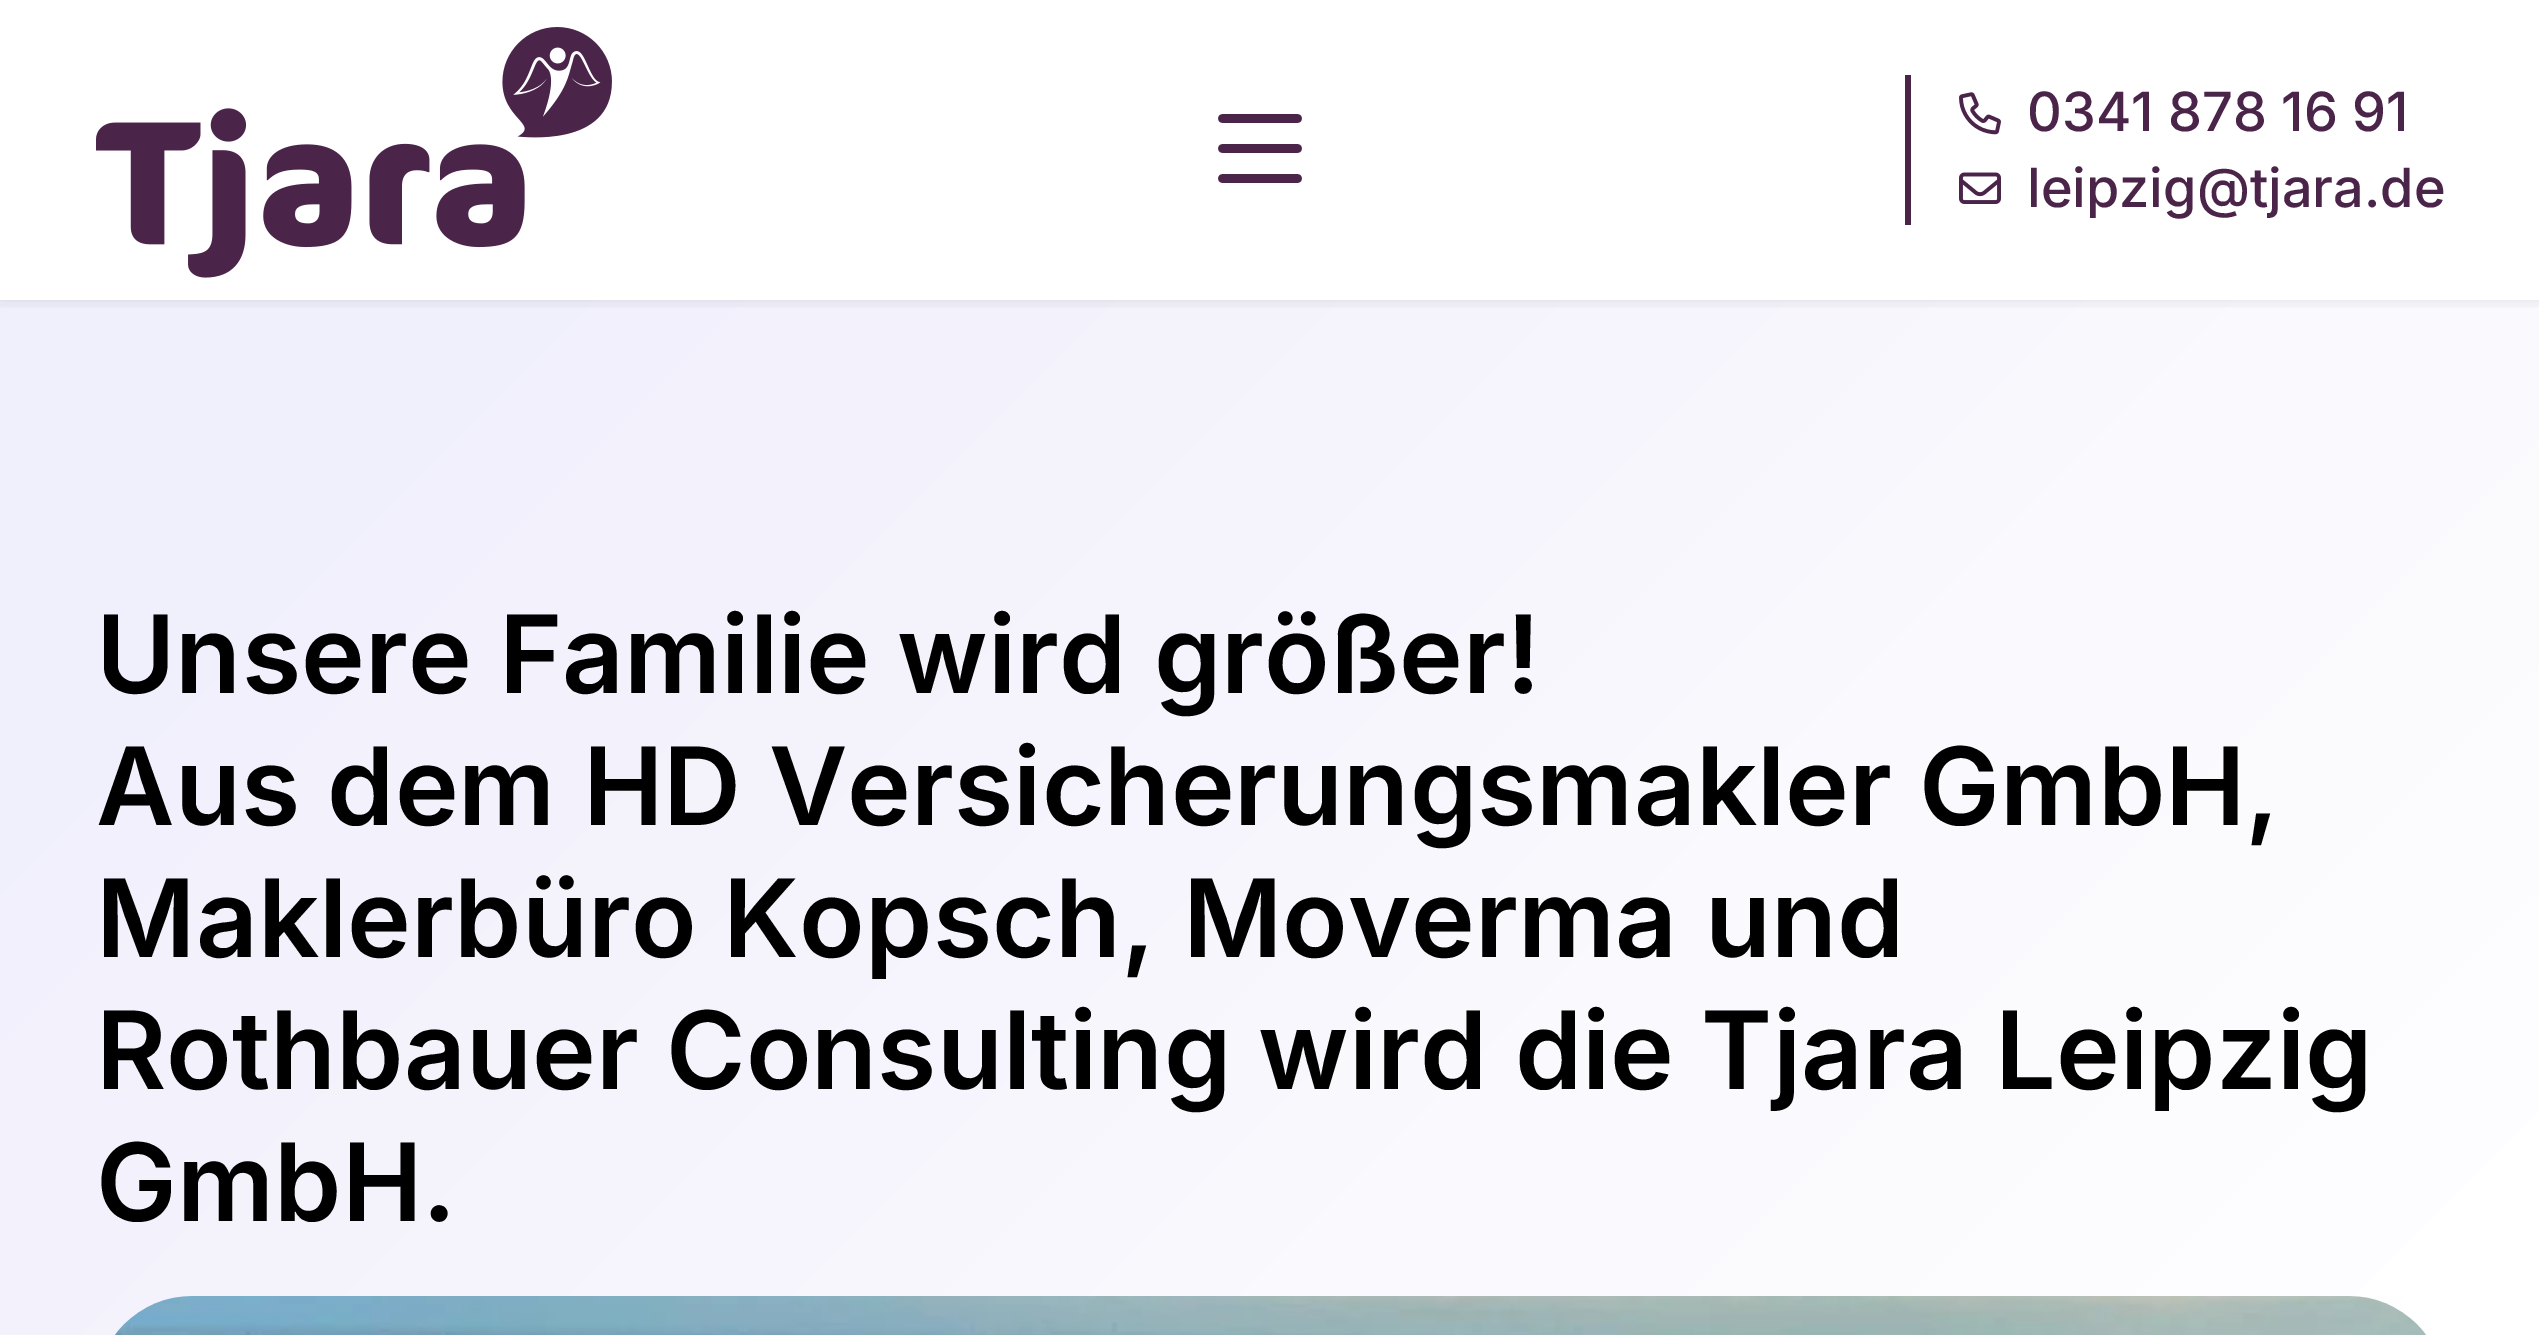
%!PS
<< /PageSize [2539 1335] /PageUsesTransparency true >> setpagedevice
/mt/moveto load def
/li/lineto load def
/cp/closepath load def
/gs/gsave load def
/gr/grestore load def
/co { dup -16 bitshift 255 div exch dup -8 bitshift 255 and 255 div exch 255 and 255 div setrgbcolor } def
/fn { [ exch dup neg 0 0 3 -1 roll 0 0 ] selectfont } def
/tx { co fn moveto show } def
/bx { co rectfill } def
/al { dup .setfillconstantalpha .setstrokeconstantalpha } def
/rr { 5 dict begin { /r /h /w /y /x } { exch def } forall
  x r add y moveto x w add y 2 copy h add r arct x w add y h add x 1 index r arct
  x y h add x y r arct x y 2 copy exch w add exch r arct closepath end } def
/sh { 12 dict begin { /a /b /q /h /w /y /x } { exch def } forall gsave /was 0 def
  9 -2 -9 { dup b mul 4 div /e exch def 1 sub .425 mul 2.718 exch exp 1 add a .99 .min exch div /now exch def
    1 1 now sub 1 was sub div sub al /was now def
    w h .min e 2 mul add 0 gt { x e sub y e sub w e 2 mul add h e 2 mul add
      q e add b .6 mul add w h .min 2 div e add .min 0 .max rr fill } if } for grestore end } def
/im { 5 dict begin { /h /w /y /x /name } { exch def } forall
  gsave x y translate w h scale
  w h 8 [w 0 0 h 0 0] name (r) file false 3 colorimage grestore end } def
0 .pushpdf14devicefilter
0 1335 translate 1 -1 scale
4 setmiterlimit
0 0 2539 1335 16#FFFFFF bx
gs 0 300 mt 2539 300 li 2539 1335 li 0 1335 li cp clip newpath
<< /ShadingType 2 /ColorSpace /DeviceRGB /Coords [-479 779 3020 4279] /Extend [true true] /Function << /FunctionType 3 /Domain [0 1] /Functions [<< /FunctionType 2 /Domain [0 1] /C0 [.941 .937 .988] /C1 [.941 .937 .988] /N 1 >> << /FunctionType 2 /Domain [0 1] /C0 [.941 .937 .988] /C1 [1 1 1] /N 1 >> << /FunctionType 2 /Domain [0 1] /C0 [1 1 1] /C1 [1 1 1] /N 1 >>] /Bounds [.05 .5] /Encode [0 1 0 1 0 1] >> >> shfill gr
gs
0 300 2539 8 rectclip
16#000000 co
0 0 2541 300 0 9 .1 sh
gr
(media/1.raw) 96 27 516 251 im
(media/2.raw) 1218 114 84 69 im
1905 75 6 150 16#4B244A bx
(media/3.raw) 1959 92 42 43 im
(media/4.raw) 1959 172 42 32 im
(media/5.raw) 115 1296 2311 39 im
(0341 878 16 91) 2027 131 /Inter-Medium 54 16#4B244A tx
(leipzig@tjara.de) 2027 207 /Inter-Medium 54 16#4B244A tx
(Unsere Familie wird größer!) 96 693 /Inter-SemiBold 108 16#000000 tx
(Aus dem HD Versicherungsmakler GmbH,) 96 825 /Inter-SemiBold 108 16#000000 tx
(Maklerbüro Kopsch, Moverma und) 96 957 /Inter-SemiBold 108 16#000000 tx
(Rothbauer Consulting wird die Tjara Leipzig) 96 1089 /Inter-SemiBold 108 16#000000 tx
(GmbH.) 96 1221 /Inter-SemiBold 108 16#000000 tx
.poppdf14devicefilter showpage
